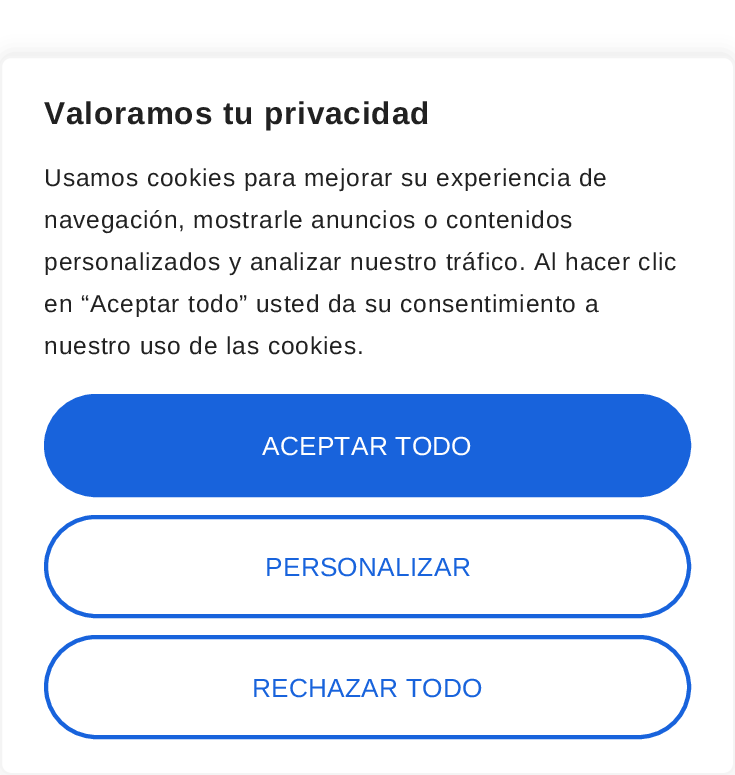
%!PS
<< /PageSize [735 775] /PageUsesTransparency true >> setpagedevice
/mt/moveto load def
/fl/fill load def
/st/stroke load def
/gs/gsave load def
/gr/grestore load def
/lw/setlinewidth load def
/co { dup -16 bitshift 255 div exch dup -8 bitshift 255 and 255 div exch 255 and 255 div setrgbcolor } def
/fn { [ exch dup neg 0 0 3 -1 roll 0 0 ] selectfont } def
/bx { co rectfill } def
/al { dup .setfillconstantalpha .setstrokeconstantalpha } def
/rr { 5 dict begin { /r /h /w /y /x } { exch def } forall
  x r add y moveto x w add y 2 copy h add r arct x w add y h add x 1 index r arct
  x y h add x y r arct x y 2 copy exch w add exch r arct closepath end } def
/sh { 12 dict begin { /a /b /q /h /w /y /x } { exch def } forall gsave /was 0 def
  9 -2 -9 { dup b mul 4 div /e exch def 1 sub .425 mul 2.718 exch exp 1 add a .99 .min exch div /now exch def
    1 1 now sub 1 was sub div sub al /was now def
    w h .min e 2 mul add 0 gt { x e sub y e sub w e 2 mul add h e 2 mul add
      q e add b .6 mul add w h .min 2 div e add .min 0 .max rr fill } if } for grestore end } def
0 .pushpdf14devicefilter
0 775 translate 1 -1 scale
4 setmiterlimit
0 0 735 775 16#FFFFFF bx
16#ACABAB co
0 54 735 720 11 9 .3 sh
16#FFFFFF co
1 57 733 717 10 rr gs fl gr
16#F4F4F4 co
2 lw
st
16#1863DC co
46 396 643 99 49.5 rr gs fl gr
4 lw
st
46 517 643 99 49.5 rr st
46 637 643 100 50 rr st
/LiberationSans-Bold 31.5 fn
16#212121 co
44 124 mt .88 0 (Valoramos tu privacidad) ashow
/LiberationSans-Regular 24.5 fn
44 186 mt .88 0 (Usamos cookies para mejorar su experiencia de) ashow
44 228 mt .88 0 (navegación, mostrarle anuncios o contenidos) ashow
44 270 mt .88 0 (personalizados y analizar nuestro tráfico. Al hacer clic) ashow
44 312 mt .88 0 (en “Aceptar todo” usted da su consentimiento a) ashow
44 354 mt .88 0 (nuestro uso de las cookies.) ashow
/LiberationSans-Regular 26.25 fn
16#FFFFFF co
262 455 mt .25 0 (ACEPTAR TODO) ashow
16#1863DC co
265 576 mt .25 0 (PERSONALIZAR) ashow
252 697 mt .25 0 (RECHAZAR TODO) ashow
.poppdf14devicefilter showpage
